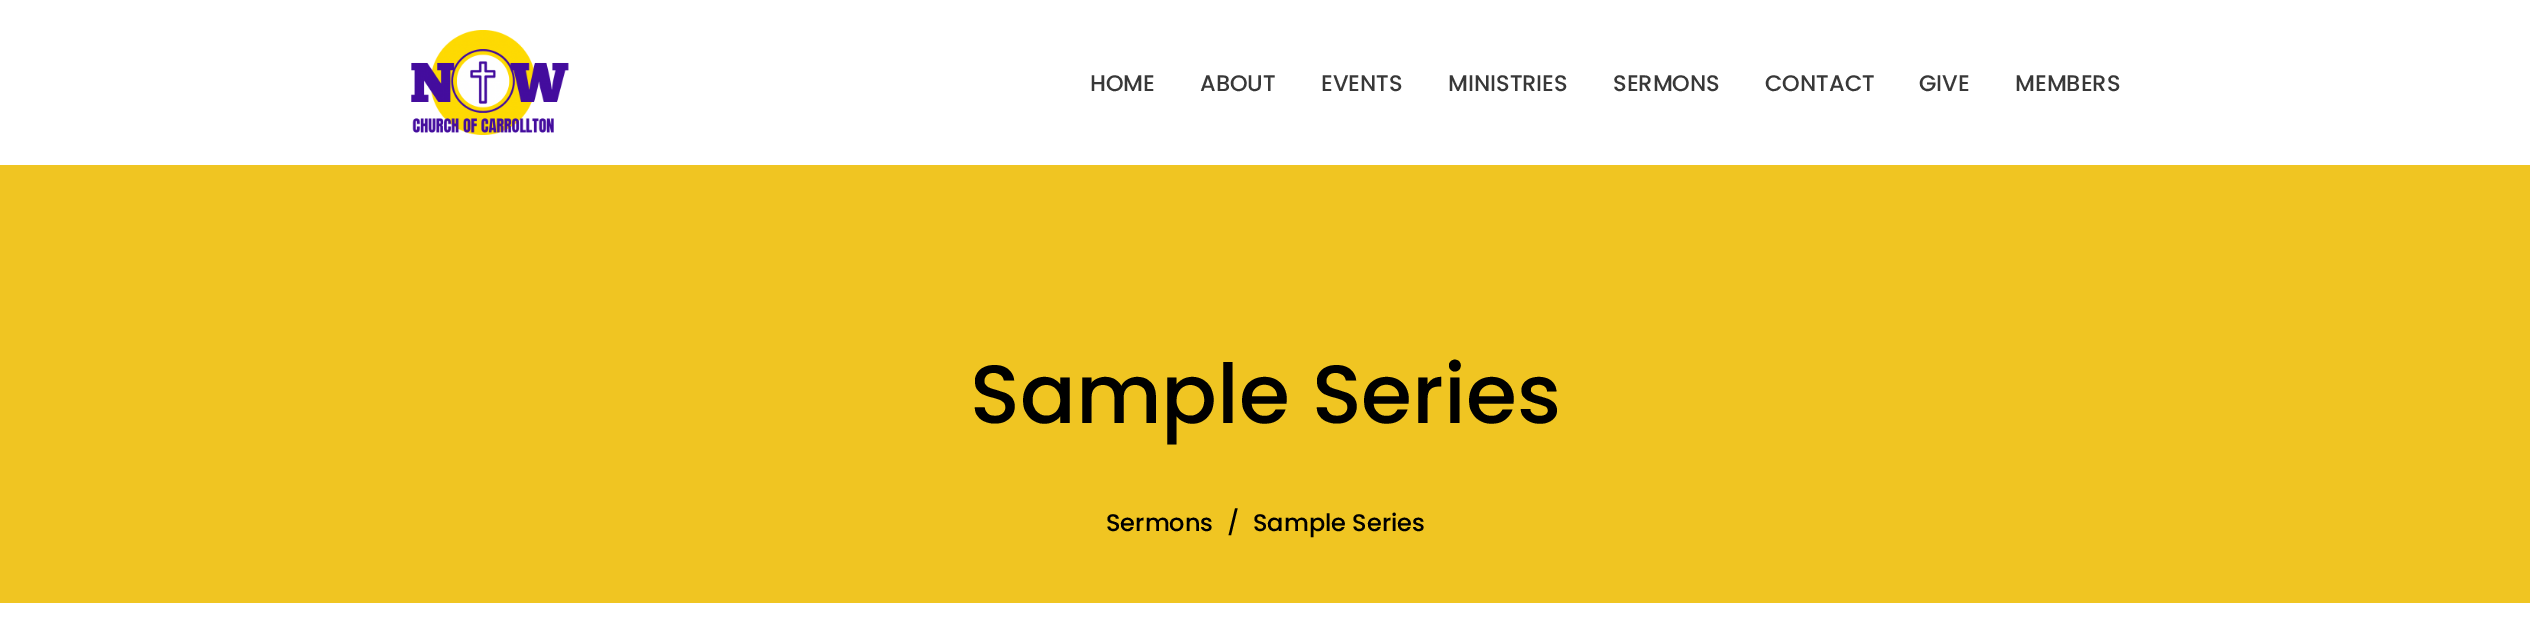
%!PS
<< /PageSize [2530 622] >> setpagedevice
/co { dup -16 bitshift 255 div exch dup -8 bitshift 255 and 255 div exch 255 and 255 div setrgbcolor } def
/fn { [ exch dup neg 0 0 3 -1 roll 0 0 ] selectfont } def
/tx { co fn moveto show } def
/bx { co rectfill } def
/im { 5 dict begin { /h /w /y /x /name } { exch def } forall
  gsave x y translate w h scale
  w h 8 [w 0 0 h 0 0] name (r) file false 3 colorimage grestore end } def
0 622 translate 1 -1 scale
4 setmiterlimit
0 0 2530 622 16#FFFFFF bx
(media/1.raw) 411 30 158 105 im
0 165 2530 438 16#F0C522 bx
(HOME) 1090 91 /Poppins-Medium 22.5 16#383838 tx
(ABOUT) 1200 91 /Poppins-Medium 22.5 16#383838 tx
(EVENTS) 1321 91 /Poppins-Medium 22.5 16#383838 tx
(MINISTRIES) 1448 91 /Poppins-Medium 22.5 16#383838 tx
(SERMONS) 1613 91 /Poppins-Medium 22.5 16#383838 tx
(CONTACT) 1765 91 /Poppins-Medium 22.5 16#383838 tx
(GIVE) 1919 91 /Poppins-Medium 22.5 16#383838 tx
(MEMBERS) 2015 91 /Poppins-Medium 22.5 16#383838 tx
(Sample Series) 970 423 /Poppins-Medium 82.5 16#000000 tx
(Sermons) 1106 531 /Poppins-Medium 24 16#000000 tx
(/) 1227 531 /Poppins-Medium 24 16#000000 tx
(Sample Series) 1253 531 /Poppins-Medium 24 16#000000 tx
showpage
